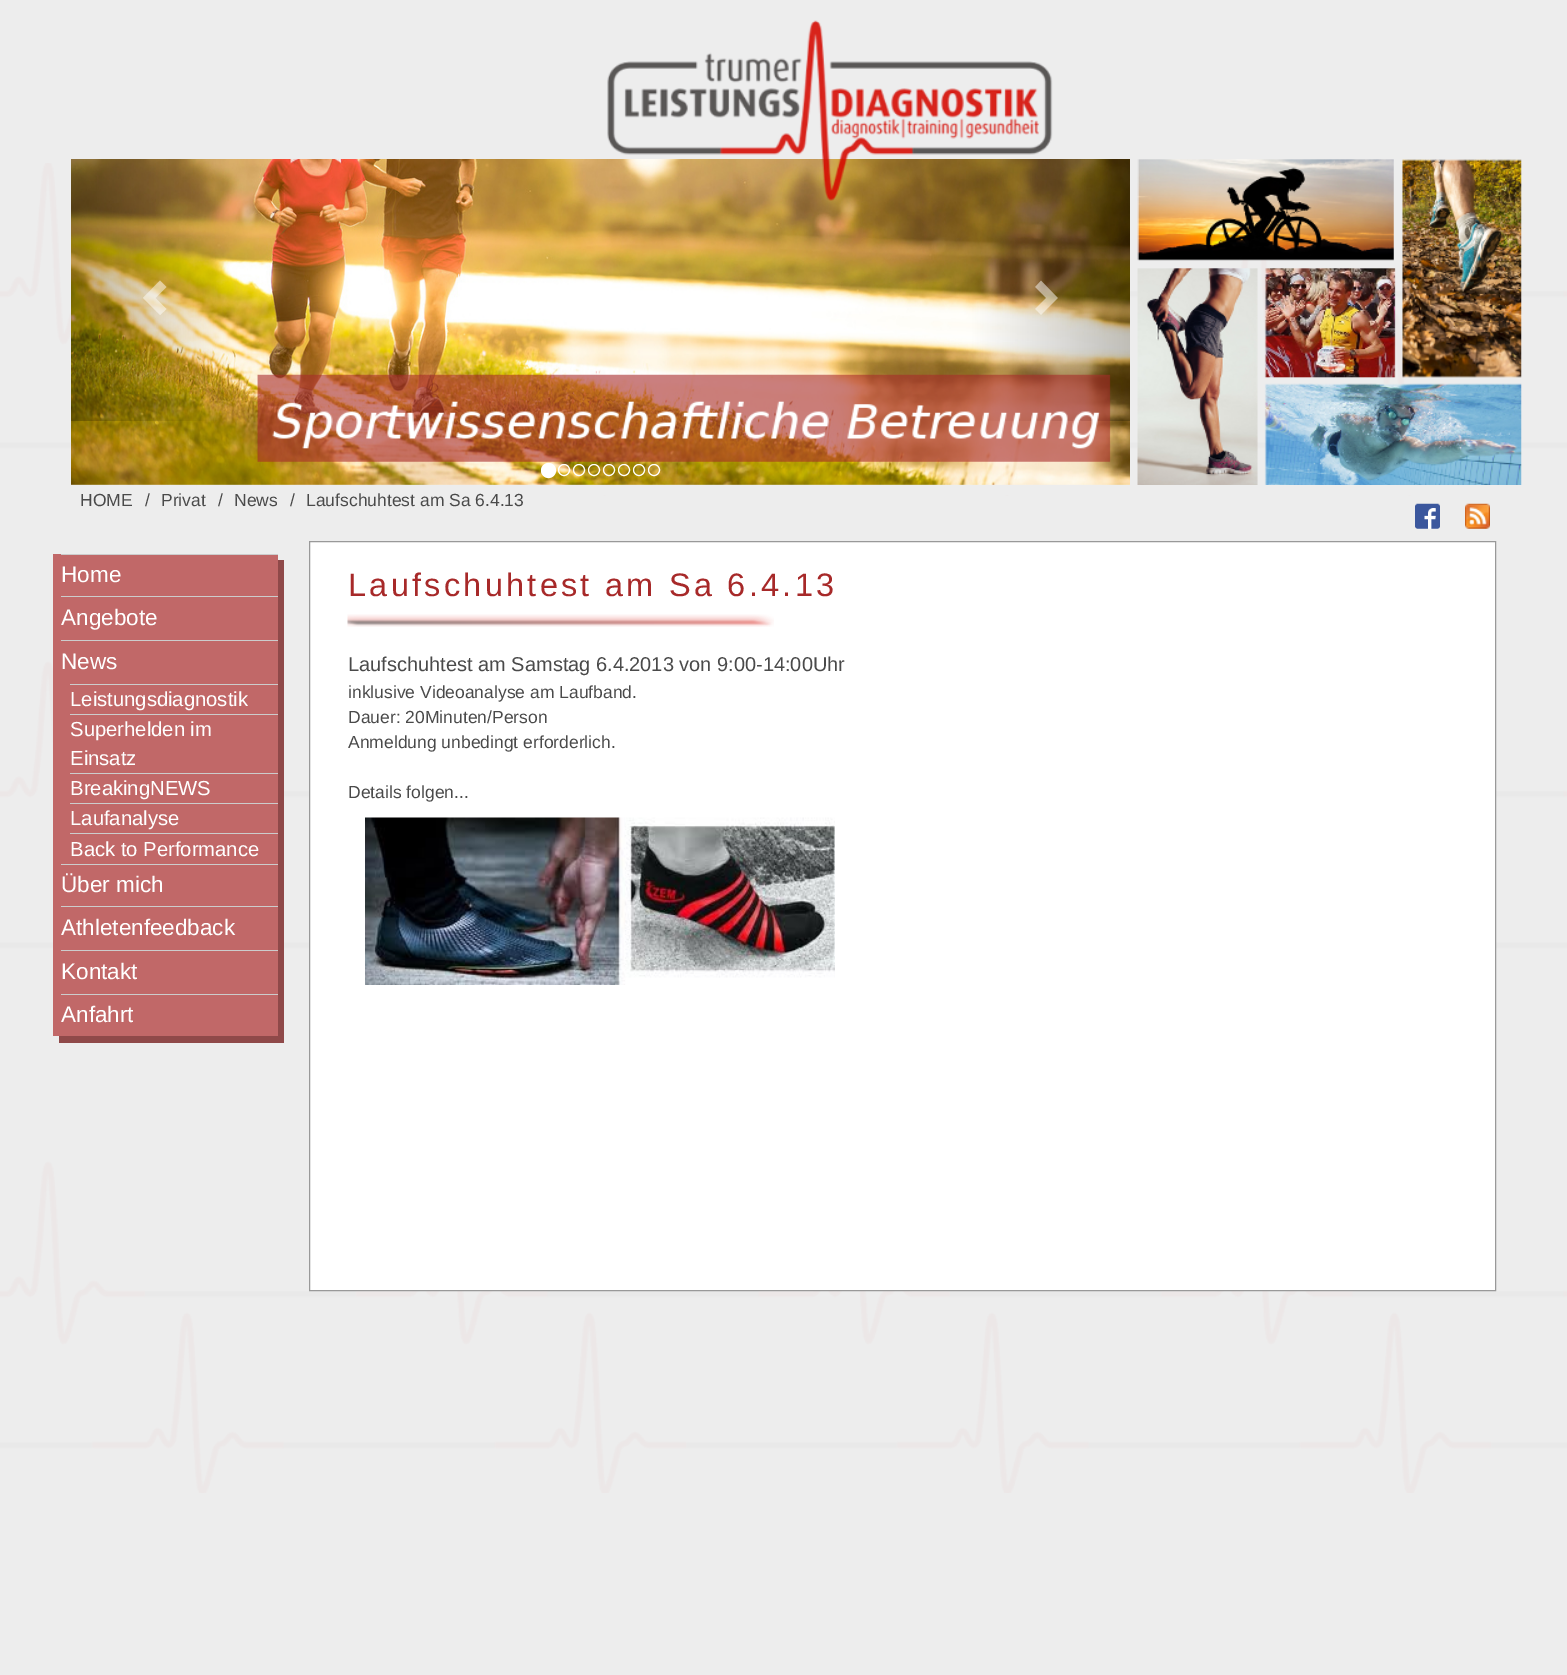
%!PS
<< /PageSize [1567 1675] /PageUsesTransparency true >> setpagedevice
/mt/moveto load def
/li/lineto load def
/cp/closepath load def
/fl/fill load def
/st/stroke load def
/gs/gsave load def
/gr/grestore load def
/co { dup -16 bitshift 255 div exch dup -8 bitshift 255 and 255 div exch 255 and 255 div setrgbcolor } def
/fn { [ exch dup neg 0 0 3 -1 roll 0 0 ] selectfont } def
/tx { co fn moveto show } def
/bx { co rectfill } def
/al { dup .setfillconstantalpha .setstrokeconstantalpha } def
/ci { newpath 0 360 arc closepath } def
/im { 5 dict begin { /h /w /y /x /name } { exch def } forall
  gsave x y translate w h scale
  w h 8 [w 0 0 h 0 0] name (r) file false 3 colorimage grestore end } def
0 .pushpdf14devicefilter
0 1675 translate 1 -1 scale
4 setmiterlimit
0 0 1567 1675 16#EDEDED bx
(media/1.raw) 0 163 1567 1330 im
(media/3.raw) 71 159 1059 326 im
0.5 al
16#FFFFFF co
1058 298 mt 1041 315 li 1035 309 li 1046 298 li 1035 287 li 1041 280.5 li cp fl
1 al
(media/2.raw) 257 20 1265 465 im
0.5 al
166.5 287 mt 155.5 298 li 166.5 309 li 160 315 li 143 298 li 160 280.5 li cp fl
1 al
548.5 470.5 7 ci gs fl gr
st
564 470 5.5 ci st
579 470 5.5 ci st
594 470 5.5 ci st
609 470 5.5 ci st
624 470 5.5 ci st
639 470 5.5 ci st
654 470 5.5 ci st
197 485 1220 10 16#EDEDED bx
(media/4.raw) 1415 503 25 26 im
(media/5.raw) 1465 503 25 26 im
16#8F4949 co
59 1036 mt 59 1043 li 284 1043 li 284 560 li 278 560 li 278 1036 li cp fl
53 554 225 482 16#C16868 bx
61 554 217 1 16#CCCCCC bx
61 596 217 1 16#CCCCCC bx
61 640 217 1 16#CCCCCC bx
70 684 208 1 16#CCCCCC bx
70 714 208 1 16#CCCCCC bx
70 773 208 1 16#CCCCCC bx
70 803 208 1 16#CCCCCC bx
70 833 208 1 16#CCCCCC bx
61 864 217 1 16#CCCCCC bx
61 906 217 1 16#CCCCCC bx
61 950 217 1 16#CCCCCC bx
61 994 217 1 16#CCCCCC bx
16#FFFFFF co
309.5 541.5 mt 1495.5 541.5 li 1495.5 1290.5 li 309.5 1290.5 li cp gs fl gr
16#999999 co
st
(media/6.raw) 347 614 427 13 im
(media/7.raw) 365 817 470 168 im
(HOME) 80 506 /LiberationSans-Regular 17.5 16#4A4A4A tx
(/) 145 506 /LiberationSans-Regular 17.5 16#4A4A4A tx
(Privat) 161 506 /LiberationSans-Regular 17.5 16#4A4A4A tx
(/) 218 506 /LiberationSans-Regular 17.5 16#4A4A4A tx
(News) 234 506 /LiberationSans-Regular 17.5 16#4A4A4A tx
(/) 290 506 /LiberationSans-Regular 17.5 16#4A4A4A tx
(Laufschuhtest am Sa 6.4.13) 306 506 /LiberationSans-Regular 17.5 16#4A4A4A tx
(Home) 61 582 /LiberationSans-Regular 22.5 16#FFFFFF tx
(Angebote) 61 625 /LiberationSans-Regular 22.5 16#FFFFFF tx
(News) 61 669 /LiberationSans-Regular 22.5 16#FFFFFF tx
(Leistungsdiagnostik) 70 706 /LiberationSans-Regular 20.25 16#FFFFFF tx
(Superhelden im) 70 736 /LiberationSans-Regular 20.25 16#FFFFFF tx
(Einsatz) 70 765 /LiberationSans-Regular 20.25 16#FFFFFF tx
(BreakingNEWS) 70 795 /LiberationSans-Regular 20.25 16#FFFFFF tx
(Laufanalyse) 70 825 /LiberationSans-Regular 20.25 16#FFFFFF tx
(Back to Performance) 70 856 /LiberationSans-Regular 20.25 16#FFFFFF tx
(Über mich) 61 892 /LiberationSans-Regular 22.5 16#FFFFFF tx
(Athletenfeedback) 61 935 /LiberationSans-Regular 22.5 16#FFFFFF tx
(Kontakt) 61 979 /LiberationSans-Regular 22.5 16#FFFFFF tx
(Anfahrt) 61 1022 /LiberationSans-Regular 22.5 16#FFFFFF tx
/LiberationSans-Regular 32.5 fn
16#A72929 co
348 596 mt 3.25 0 (Laufschuhtest am Sa 6.4.13) ashow
(Laufschuhtest am Samstag 6.4.2013 von 9:00-14:00Uhr) 348 671 /LiberationSans-Regular 20 16#4A4A4A tx
(inklusive Videoanalyse am Laufband.) 348 698 /LiberationSans-Regular 17.5 16#4A4A4A tx
(Dauer: 20Minuten/Person) 348 723 /LiberationSans-Regular 17.5 16#4A4A4A tx
(Anmeldung unbedingt erforderlich.) 348 748 /LiberationSans-Regular 17.5 16#4A4A4A tx
(Details folgen...) 348 798 /LiberationSans-Regular 17.5 16#4A4A4A tx
.poppdf14devicefilter showpage
